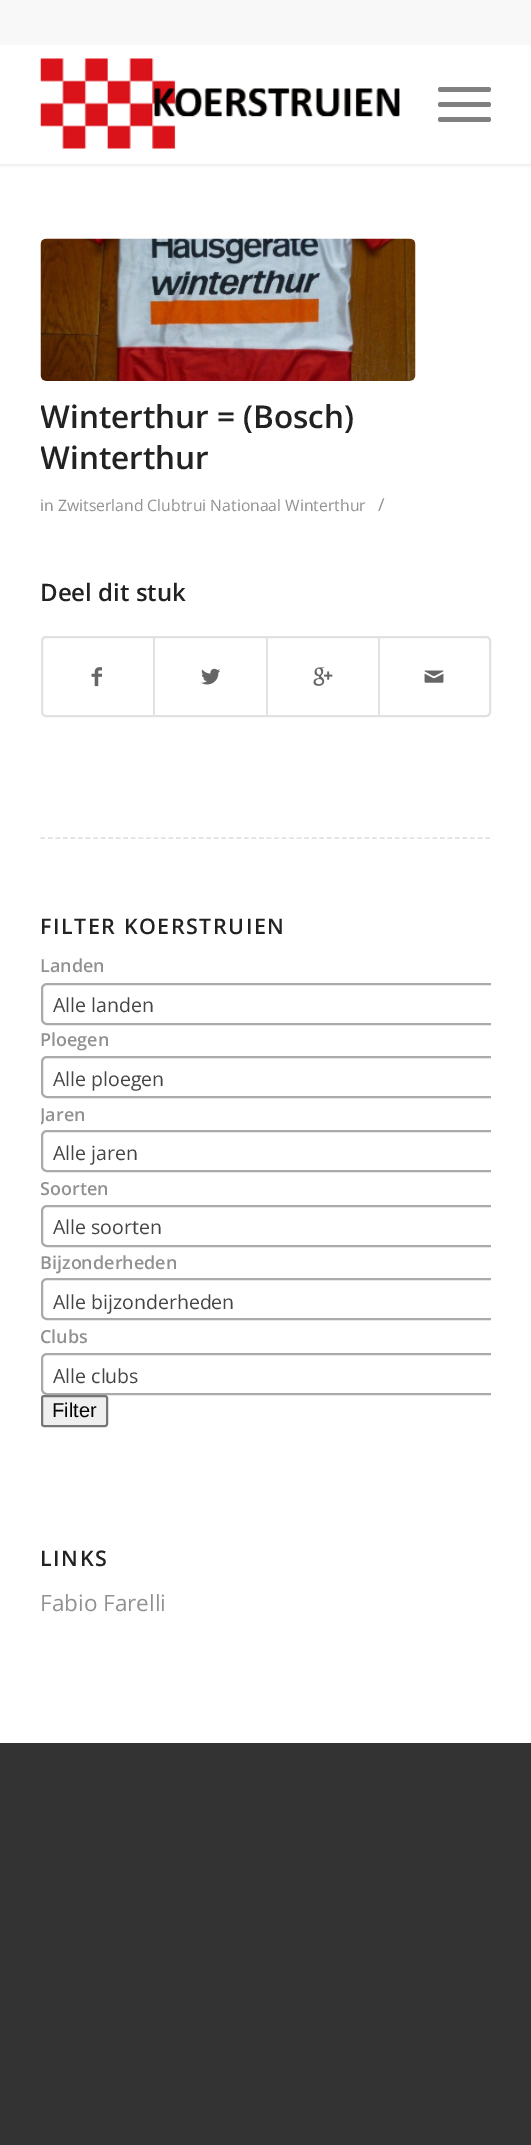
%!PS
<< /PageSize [531 2145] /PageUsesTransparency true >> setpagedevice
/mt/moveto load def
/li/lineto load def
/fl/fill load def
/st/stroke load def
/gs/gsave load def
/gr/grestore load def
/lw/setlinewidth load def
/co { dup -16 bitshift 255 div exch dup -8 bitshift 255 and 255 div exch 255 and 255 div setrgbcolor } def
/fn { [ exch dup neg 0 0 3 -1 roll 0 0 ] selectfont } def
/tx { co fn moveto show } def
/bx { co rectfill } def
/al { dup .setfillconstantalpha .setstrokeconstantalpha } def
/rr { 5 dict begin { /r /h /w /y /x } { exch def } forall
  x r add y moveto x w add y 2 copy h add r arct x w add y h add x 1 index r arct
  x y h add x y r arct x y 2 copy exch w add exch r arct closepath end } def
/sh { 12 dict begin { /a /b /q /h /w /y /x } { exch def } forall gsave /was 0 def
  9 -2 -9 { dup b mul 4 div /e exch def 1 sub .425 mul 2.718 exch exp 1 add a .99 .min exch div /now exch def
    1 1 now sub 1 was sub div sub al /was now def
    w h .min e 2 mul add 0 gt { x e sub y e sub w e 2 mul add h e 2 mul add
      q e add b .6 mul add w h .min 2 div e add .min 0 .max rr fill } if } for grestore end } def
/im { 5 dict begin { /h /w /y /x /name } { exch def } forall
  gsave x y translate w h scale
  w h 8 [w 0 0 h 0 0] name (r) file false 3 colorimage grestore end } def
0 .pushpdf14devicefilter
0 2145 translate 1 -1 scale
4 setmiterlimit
0 0 531 2145 16#333333 bx
0 164 531 1579 16#FFFFFF bx
16#000000 co
-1 -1 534 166 0 1.5 .1 sh
0 0 531 45 16#F8F8F8 bx
0 45 531 119 16#FFFFFF bx
(media/1.raw) 40 58 360 91 im
16#808080 co
438 102 53 5 2.5 rr fl
438 87 53 5 2.5 rr fl
438 117 53 5 2.5 rr fl
(media/2.raw) 40 238 376 143 im
16#E1E1E1 co
2 lw
42 637 448 79 4 rr st
(media/3.raw) 91 667 11 20 im
153 638 2 78 16#E1E1E1 bx
(media/4.raw) 201 668 20 17 im
266 638 2 78 16#E1E1E1 bx
(media/5.raw) 313 667 20 19 im
378 638 2 78 16#E1E1E1 bx
(media/6.raw) 424 670 20 13 im
1.5 lw
[4.5 3.04] 0 setdash
40.5 838 mt 490.5 838 li st
gs
41 839 450 904 rectclip
16#AAAAAA co
2 lw
[] 0 setdash
42 984 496 40 5 rr st
42 1057 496 40 5 rr st
42 1131 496 40 5 rr st
42 1206 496 40 5 rr st
42 1279 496 40 5 rr st
42 1354 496 40 5 rr st
gr
16#EFEFEF co
42 1396 65 30 2 rr gs fl gr
16#767676 co
2 lw
[] 0 setdash
st
gs
41 396 450 336 rectclip
(Winterthur = \(Bosch\)) 40 428 /OpenSans-SemiBold 31.5 16#222222 tx
(Winterthur) 40 469 /OpenSans-SemiBold 31.5 16#222222 tx
gr
(in Zwitserland Clubtrui Nationaal Winterthur) 40 511 /OpenSans-Regular 15.75 16#919191 tx
(/) 378 511 /OpenSans-Regular 18 16#919191 tx
(Deel dit stuk) 40 601 /OpenSans-SemiBold 24 16#222222 tx
/OpenSans-SemiBold 21.5 fn
40 934 mt 1.5 0 (FILTER KOERSTRUIEN) ashow
(Landen) 40 972 /OpenSans-SemiBold 18 16#919191 tx
(Alle landen) 53 1012 /OpenSans-Regular 19.5 16#444444 tx
(Ploegen) 40 1046 /OpenSans-SemiBold 18 16#919191 tx
(Alle ploegen) 53 1086 /OpenSans-Regular 19.5 16#444444 tx
gs
41 839 450 904 rectclip
(Jaren) 40 1121 /OpenSans-SemiBold 18 16#919191 tx
gr
(Alle jaren) 53 1160 /OpenSans-Regular 19.5 16#444444 tx
gs
41 839 450 904 rectclip
(Soorten) 40 1195 /OpenSans-SemiBold 18 16#919191 tx
gr
(Alle soorten) 53 1234 /OpenSans-Regular 19.5 16#444444 tx
(Bijzonderheden) 40 1269 /OpenSans-SemiBold 18 16#919191 tx
(Alle bijzonderheden) 53 1309 /OpenSans-Regular 19.5 16#444444 tx
(Clubs) 40 1343 /OpenSans-SemiBold 18 16#919191 tx
(Alle clubs) 53 1383 /OpenSans-Regular 19.5 16#444444 tx
(Filter) 52 1417 /LiberationSans-Regular 20 16#000000 tx
/OpenSans-SemiBold 21.5 fn
16#222222 co
40 1566 mt 1.5 0 (LINKS) ashow
(Fabio Farelli) 40 1611 /OpenSans-Regular 22.5 16#919191 tx
.poppdf14devicefilter showpage
